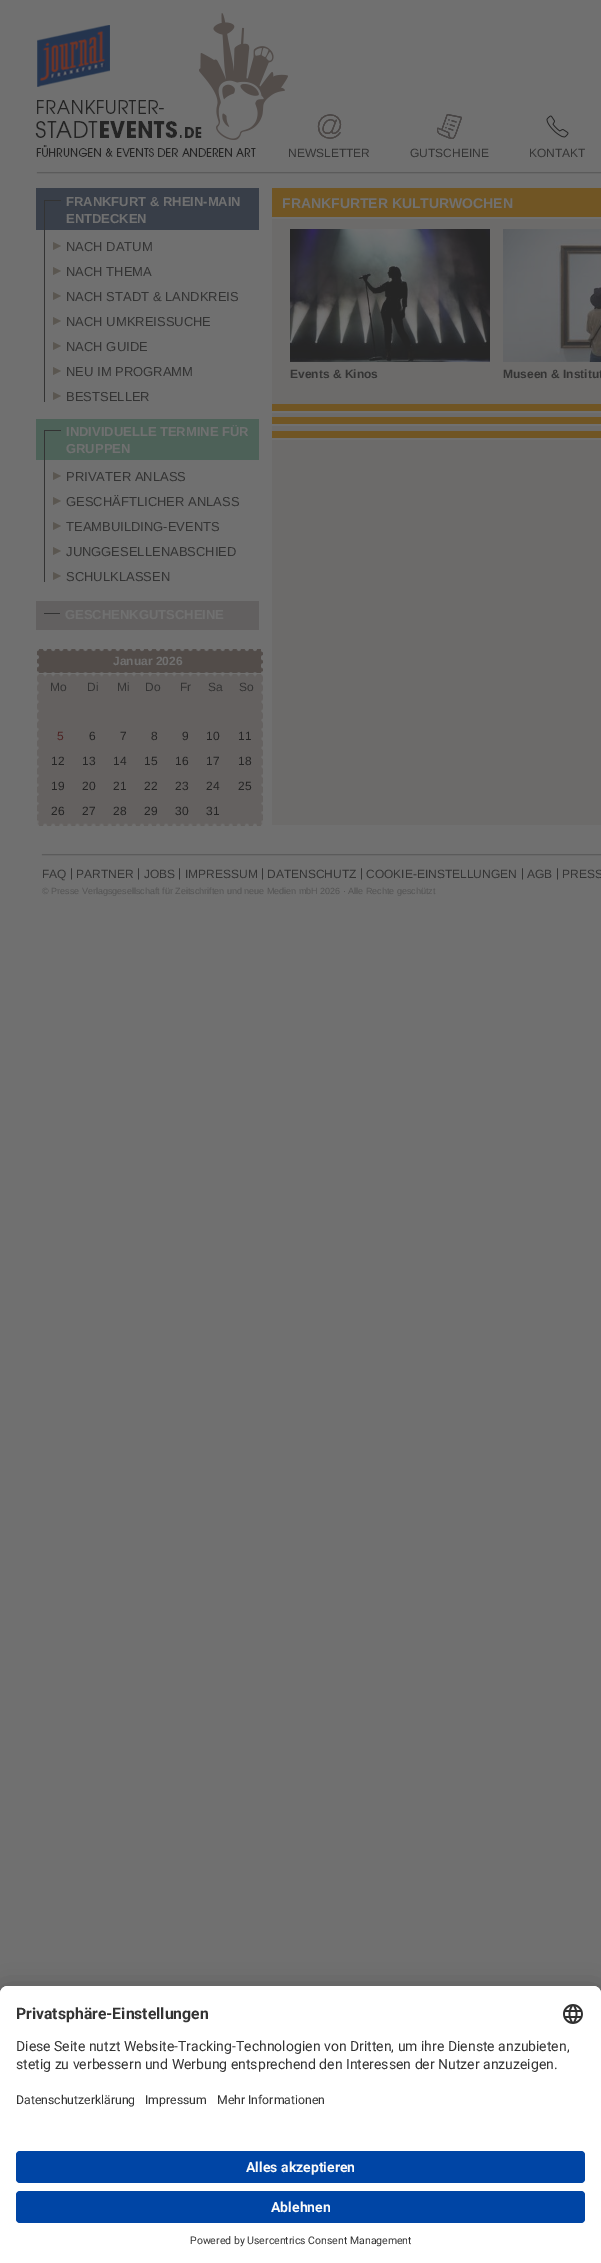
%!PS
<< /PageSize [601 2263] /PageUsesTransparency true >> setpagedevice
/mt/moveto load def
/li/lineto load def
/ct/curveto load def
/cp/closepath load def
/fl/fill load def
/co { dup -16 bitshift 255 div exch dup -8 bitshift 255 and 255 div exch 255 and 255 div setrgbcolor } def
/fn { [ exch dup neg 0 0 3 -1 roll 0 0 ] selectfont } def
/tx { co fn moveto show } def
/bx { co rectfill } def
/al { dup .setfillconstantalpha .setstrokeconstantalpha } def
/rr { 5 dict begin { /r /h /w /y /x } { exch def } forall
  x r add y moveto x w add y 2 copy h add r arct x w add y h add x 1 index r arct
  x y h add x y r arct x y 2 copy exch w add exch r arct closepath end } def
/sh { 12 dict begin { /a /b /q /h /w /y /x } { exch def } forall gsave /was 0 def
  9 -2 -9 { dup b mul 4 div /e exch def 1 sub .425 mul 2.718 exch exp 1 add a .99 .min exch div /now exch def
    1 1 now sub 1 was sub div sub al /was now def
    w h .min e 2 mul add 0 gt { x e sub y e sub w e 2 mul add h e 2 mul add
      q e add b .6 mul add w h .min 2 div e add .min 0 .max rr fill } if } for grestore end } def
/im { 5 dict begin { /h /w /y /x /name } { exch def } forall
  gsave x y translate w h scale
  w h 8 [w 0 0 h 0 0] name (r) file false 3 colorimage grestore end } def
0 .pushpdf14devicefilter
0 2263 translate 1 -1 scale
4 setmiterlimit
0 0 601 2263 16#707070 bx
(media/1.raw) 35 13 253 144 im
(media/2.raw) 317 114 25 25 im
(media/3.raw) 437 114 25 25 im
(media/4.raw) 546 115 23 23 im
(media/5.raw) 36 172 565 2 im
36 188 223 42 16#383E48 bx
44 200 17 1 16#333333 bx
44 200 1 202 16#333333 bx
16#5A5650 co
53 250 mt 53 242 li 61 246 li cp 53 275 mt 53 267 li 61 271 li cp 53 300 mt 53 292 li 61 296 li cp fl
53 325 mt 53 317 li 61 321 li cp 53 350 mt 53 342 li 61 346 li cp 53 375 mt 53 367 li 61 371 li cp fl
53 400 mt 53 392 li 61 396 li cp fl
36 419 223 41 16#4D6158 bx
44 430 17 1 16#333333 bx
44 430 1 152 16#333333 bx
16#5A5650 co
53 480 mt 53 472 li 61 476 li cp 53 505 mt 53 497 li 61 501 li cp 53 530 mt 53 522 li 61 526 li cp fl
53 555 mt 53 547 li 61 551 li cp 53 580 mt 53 572 li 61 576 li cp fl
36 601 223 29 16#626060 bx
44 613 16 1 16#333333 bx
(media/6.raw) 37 649 226 24 im
(media/7.raw) 37 674 226 152 im
272 219 329 606 16#6C6B6A bx
272 188 329 29 16#705524 bx
(media/8.raw) 290 229 200 133 im
(media/9.raw) 503 229 98 133 im
272 404 329 7 16#705524 bx
272 411 329 2 16#707070 bx
272 417 329 7 16#705524 bx
272 424 329 2 16#707070 bx
272 431 329 7 16#705524 bx
272 438 329 2 16#707070 bx
(media/10.raw) 41 854 560 2 im
16#000000 co
0 2006 601 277 8 14 .3 sh
0 1991 601 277 8 13 .22 sh
16#FFFFFF co
8 1986 mt 593 1986 li 597.5 1986 601 1989.5 601 1994 ct 601 2263 li 0 2263 li 0 1994 li 0 1989.5 3.5 1986 8 1986 ct cp fl
8 1986 mt 593 1986 li 597.5 1986 601 1989.5 601 1994 ct 601 2139 li 0 2139 li 0 1994 li 0 1989.5 3.5 1986 8 1986 ct cp fl
(media/11.raw) 563 2004 20 20 im
16#0045A5 co
16 2151 569 32 4 rr fl
16 2191 569 32 4 rr fl
(NEWSLETTER) 288 157 /LiberationSans-Regular 12 16#333333 tx
(GUTSCHEINE) 410 157 /LiberationSans-Regular 12 16#333333 tx
(KONTAKT) 529 157 /LiberationSans-Regular 12 16#333333 tx
(FRANKFURT & RHEIN-MAIN) 66 206 /LiberationSans-Bold 13 16#707070 tx
(ENTDECKEN) 66 223 /LiberationSans-Bold 13 16#707070 tx
(NACH DATUM) 66 251 /LiberationSans-Regular 13 16#333333 tx
(NACH THEMA) 66 276 /LiberationSans-Regular 13 16#333333 tx
(NACH STADT & LANDKREIS) 66 301 /LiberationSans-Regular 13 16#333333 tx
(NACH UMKREISSUCHE) 66 326 /LiberationSans-Regular 13 16#333333 tx
(NACH GUIDE) 66 351 /LiberationSans-Regular 13 16#333333 tx
(NEU IM PROGRAMM) 66 376 /LiberationSans-Regular 13 16#333333 tx
(BESTSELLER) 66 401 /LiberationSans-Regular 13 16#333333 tx
(INDIVIDUELLE TERMINE FÜR) 66 436 /LiberationSans-Bold 13 16#707070 tx
(GRUPPEN) 66 453 /LiberationSans-Bold 13 16#707070 tx
(PRIVATER ANLASS) 66 481 /LiberationSans-Regular 13 16#333333 tx
(GESCHÄFTLICHER ANLASS) 66 506 /LiberationSans-Regular 13 16#333333 tx
(TEAMBUILDING-EVENTS) 66 531 /LiberationSans-Regular 13 16#333333 tx
(JUNGGESELLENABSCHIED) 66 556 /LiberationSans-Regular 13 16#333333 tx
(SCHULKLASSEN) 66 581 /LiberationSans-Regular 13 16#333333 tx
(GESCHENKGUTSCHEINE) 65 619 /LiberationSans-Bold 13 16#707070 tx
(Januar 2026) 113 665 /LiberationSans-Bold 12 16#707070 tx
(Mo) 50 691 /LiberationSans-Regular 12 16#333333 tx
(Di) 87 691 /LiberationSans-Regular 12 16#333333 tx
(Mi) 117 691 /LiberationSans-Regular 12 16#333333 tx
(Do) 145 691 /LiberationSans-Regular 12 16#333333 tx
(Fr) 180 691 /LiberationSans-Regular 12 16#333333 tx
(Sa) 208 691 /LiberationSans-Regular 12 16#333333 tx
(So) 239 691 /LiberationSans-Regular 12 16#333333 tx
(5) 57 740 /LiberationSans-Regular 12 16#4D2424 tx
(6) 89 740 /LiberationSans-Regular 12 16#242424 tx
(7) 120 740 /LiberationSans-Regular 12 16#242424 tx
(8) 151 740 /LiberationSans-Regular 12 16#242424 tx
(9) 182 740 /LiberationSans-Regular 12 16#242424 tx
(10) 206 740 /LiberationSans-Regular 12 16#242424 tx
(11) 238 740 /LiberationSans-Regular 12 16#242424 tx
(12) 51 765 /LiberationSans-Regular 12 16#242424 tx
(13) 82 765 /LiberationSans-Regular 12 16#242424 tx
(14) 113 765 /LiberationSans-Regular 12 16#242424 tx
(15) 144 765 /LiberationSans-Regular 12 16#242424 tx
(16) 175 765 /LiberationSans-Regular 12 16#242424 tx
(17) 206 765 /LiberationSans-Regular 12 16#242424 tx
(18) 238 765 /LiberationSans-Regular 12 16#242424 tx
(19) 51 790 /LiberationSans-Regular 12 16#242424 tx
(20) 82 790 /LiberationSans-Regular 12 16#242424 tx
(21) 113 790 /LiberationSans-Regular 12 16#242424 tx
(22) 144 790 /LiberationSans-Regular 12 16#242424 tx
(23) 175 790 /LiberationSans-Regular 12 16#242424 tx
(24) 206 790 /LiberationSans-Regular 12 16#242424 tx
(25) 238 790 /LiberationSans-Regular 12 16#242424 tx
(26) 51 815 /LiberationSans-Regular 12 16#242424 tx
(27) 82 815 /LiberationSans-Regular 12 16#242424 tx
(28) 113 815 /LiberationSans-Regular 12 16#242424 tx
(29) 144 815 /LiberationSans-Regular 12 16#242424 tx
(30) 175 815 /LiberationSans-Regular 12 16#242424 tx
(31) 206 815 /LiberationSans-Regular 12 16#242424 tx
(FRANKFURTER KULTURWOCHEN) 282 208 /LiberationSans-Bold 14 16#707070 tx
(Events & Kinos) 290 378 /LiberationSans-Bold 12 16#333333 tx
(Museen & Institut) 503 378 /LiberationSans-Bold 12 16#333333 tx
(FAQ) 42 878 /LiberationSans-Regular 12 16#333333 tx
(|) 70 877 /LiberationSans-Regular 12 16#333333 tx
(PARTNER) 76 878 /LiberationSans-Regular 12 16#333333 tx
(|) 137 877 /LiberationSans-Regular 12 16#333333 tx
(JOBS) 144 878 /LiberationSans-Regular 12 16#333333 tx
(|) 178 877 /LiberationSans-Regular 12 16#333333 tx
(IMPRESSUM) 185 878 /LiberationSans-Regular 12 16#333333 tx
(|) 261 877 /LiberationSans-Regular 12 16#333333 tx
(DATENSCHUTZ) 267 878 /LiberationSans-Regular 12 16#333333 tx
(|) 360 877 /LiberationSans-Regular 12 16#333333 tx
(COOKIE-EINSTELLUNGEN) 366 878 /LiberationSans-Regular 12 16#333333 tx
(|) 521 877 /LiberationSans-Regular 12 16#333333 tx
(AGB) 527 878 /LiberationSans-Regular 12 16#333333 tx
(|) 556 877 /LiberationSans-Regular 12 16#333333 tx
(PRESS) 562 878 /LiberationSans-Regular 12 16#333333 tx
(© Presse Verlagsgesellschaft für Zeitschriften und neue Medien mbH 2026 · Alle Rechte geschützt) 42 894 /LiberationSans-Regular 9 16#525252 tx
(Privatsphäre-Einstellungen) 16 2019 /Roboto-Bold 15.75 16#333333 tx
(Diese Seite nutzt Website-Tracking-Technologien von Dritten, um ihre Dienste anzubieten,) 16 2051 /Roboto-Regular 14 16#333333 tx
(stetig zu verbessern und Werbung entsprechend den Interessen der Nutzer anzuzeigen.) 16 2069 /Roboto-Regular 14 16#333333 tx
(Datenschutzerklärung) 16 2104 /Roboto-Regular 12.25 16#333333 tx
(Impressum) 145 2104 /Roboto-Regular 12.25 16#333333 tx
(Mehr Informationen) 217 2104 /Roboto-Regular 12.25 16#333333 tx
(Alles akzeptieren) 246 2172 /Roboto-Bold 14 16#FAFAFA tx
(Ablehnen) 271 2212 /Roboto-Bold 14 16#FAFAFA tx
(Powered by Usercentrics Consent Management) 190 2244 /Roboto-Regular 10.5 16#333333 tx
.poppdf14devicefilter showpage
